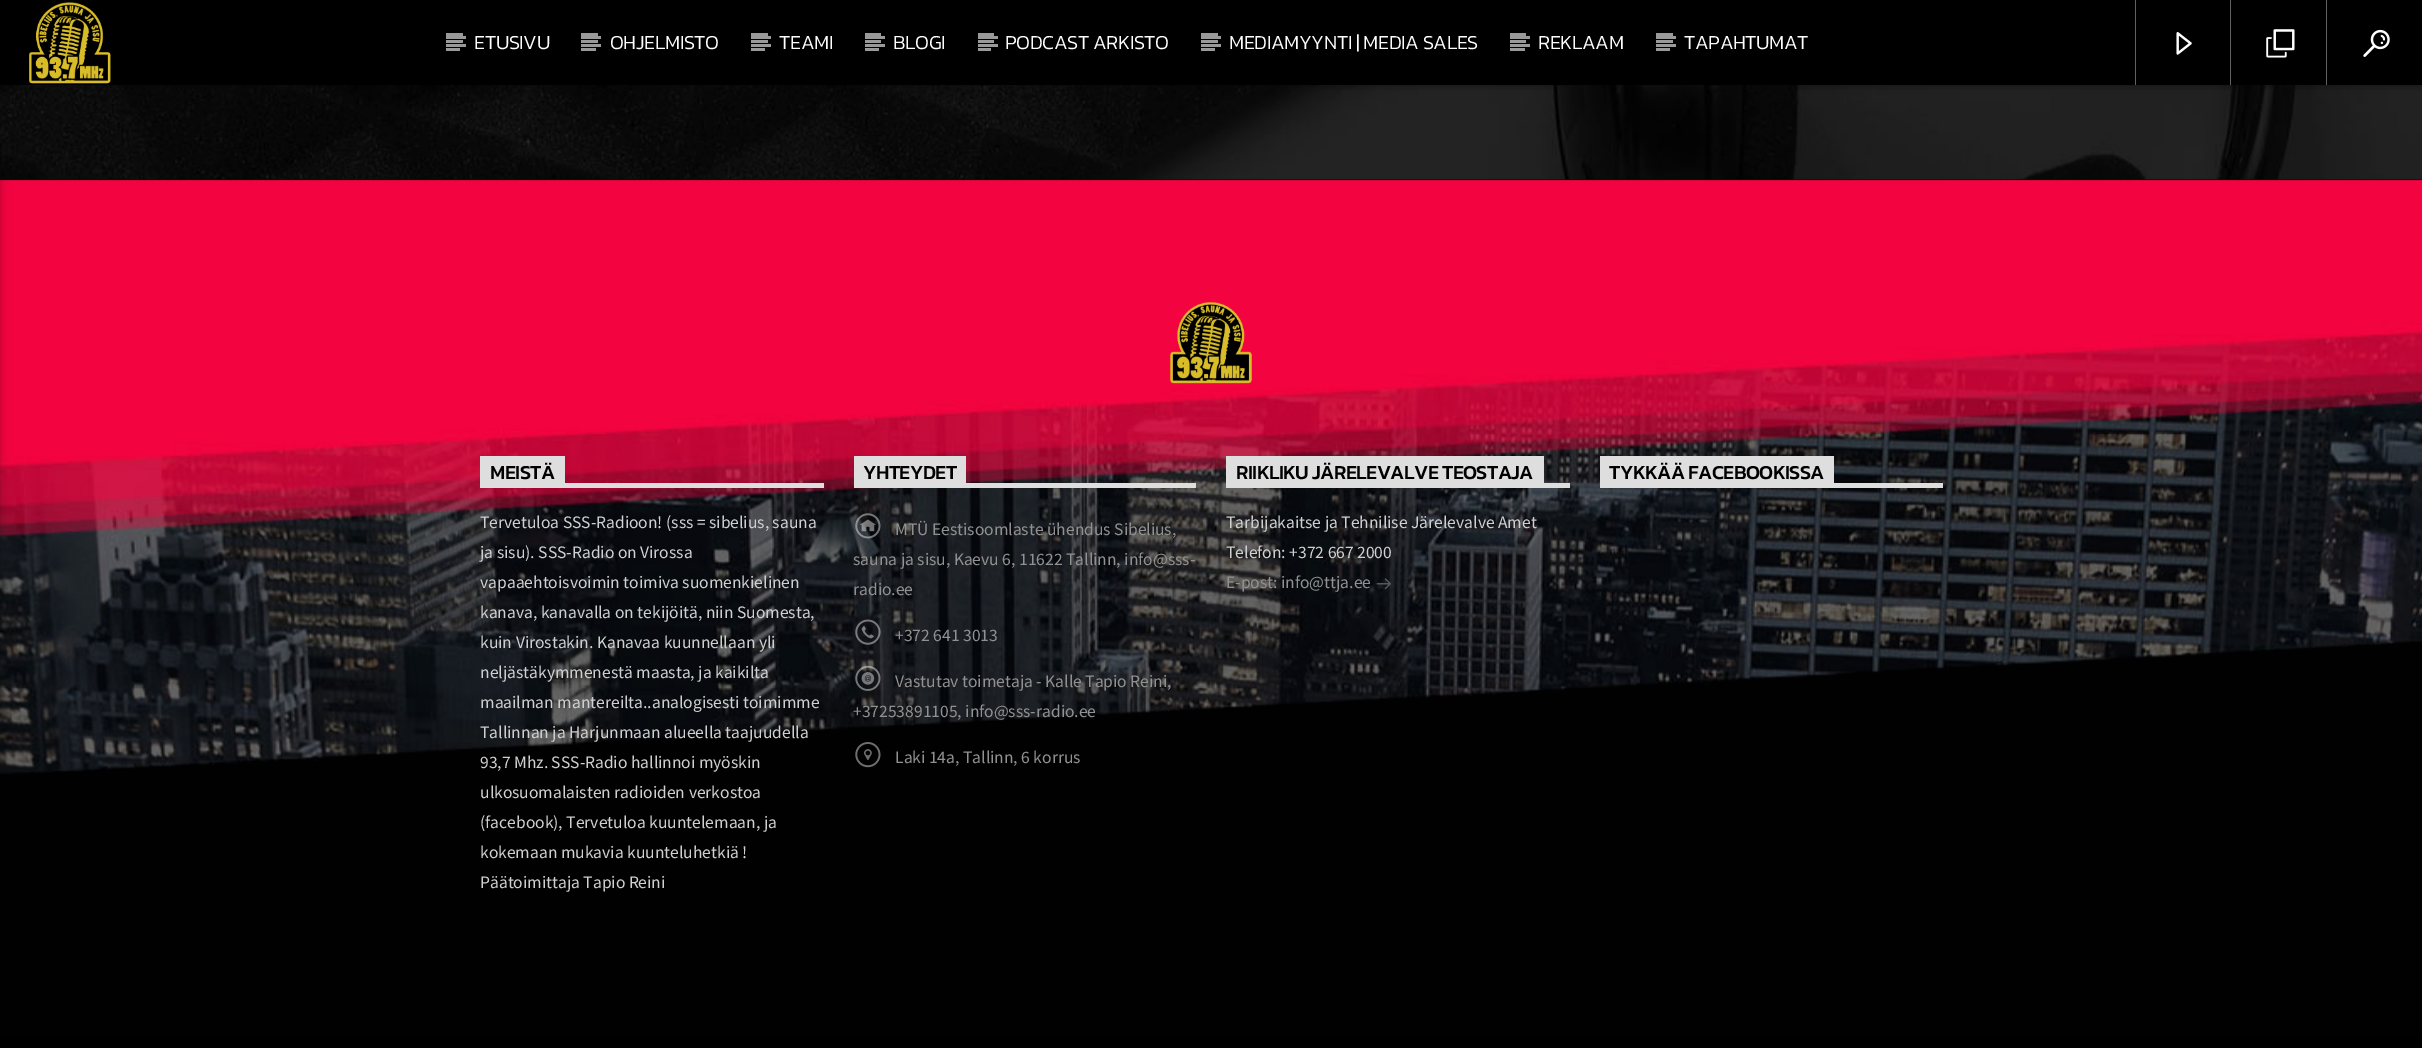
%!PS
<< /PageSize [2422 1048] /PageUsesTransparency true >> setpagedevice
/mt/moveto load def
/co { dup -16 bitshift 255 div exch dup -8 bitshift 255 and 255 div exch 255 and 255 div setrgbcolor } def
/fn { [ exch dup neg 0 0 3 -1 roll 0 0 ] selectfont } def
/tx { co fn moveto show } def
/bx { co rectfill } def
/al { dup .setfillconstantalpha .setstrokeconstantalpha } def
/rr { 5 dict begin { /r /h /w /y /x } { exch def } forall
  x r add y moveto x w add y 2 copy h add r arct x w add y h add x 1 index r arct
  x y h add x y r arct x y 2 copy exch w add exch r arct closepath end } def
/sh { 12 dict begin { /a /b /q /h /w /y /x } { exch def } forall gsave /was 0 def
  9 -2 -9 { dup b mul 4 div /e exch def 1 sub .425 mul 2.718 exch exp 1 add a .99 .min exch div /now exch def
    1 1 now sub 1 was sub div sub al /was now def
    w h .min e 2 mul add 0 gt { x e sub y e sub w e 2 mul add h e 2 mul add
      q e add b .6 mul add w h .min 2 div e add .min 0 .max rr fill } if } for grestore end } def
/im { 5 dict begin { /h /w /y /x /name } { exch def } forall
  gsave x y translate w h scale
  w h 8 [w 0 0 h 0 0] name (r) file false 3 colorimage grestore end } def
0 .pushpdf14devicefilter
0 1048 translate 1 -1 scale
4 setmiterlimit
0 0 2422 1048 16#FFFFFF bx
0 85 2422 95 16#000000 bx
(media/5.raw) 0 85 2422 95 im
0 3 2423 85 0 6 .12 sh
0 3 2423 85 0 3 .16 sh
0 0 2422 85 16#000000 bx
(media/6.raw) 0 180 2422 854 im
0 1034 2422 14 16#000000 bx
-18 3 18 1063 0 6 .12 sh
-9 3 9 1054 0 3 .16 sh
(media/1.raw) 29 2 82 82 im
446 48 14 3 16#999999 bx
446 33 17 3 16#999999 bx
446 40 17 3 16#999999 bx
446 36 20 3 16#999999 bx
446 44 20 3 16#999999 bx
581 48 15 3 16#999999 bx
581 33 17 3 16#999999 bx
581 40 17 3 16#999999 bx
581 36 20 3 16#999999 bx
581 44 20 3 16#999999 bx
751 33 17 3 16#999999 bx
751 40 17 3 16#999999 bx
751 36 20 3 16#999999 bx
751 44 20 3 16#999999 bx
751 48 14 3 16#999999 bx
865 48 14 3 16#999999 bx
865 33 16 3 16#999999 bx
865 40 16 3 16#999999 bx
865 36 20 3 16#999999 bx
865 44 20 3 16#999999 bx
978 48 13 3 16#999999 bx
978 33 16 3 16#999999 bx
978 40 16 3 16#999999 bx
978 36 20 3 16#999999 bx
978 44 20 3 16#999999 bx
1201 48 14 3 16#999999 bx
1201 33 17 3 16#999999 bx
1201 40 17 3 16#999999 bx
1201 36 20 3 16#999999 bx
1201 44 20 3 16#999999 bx
1510 33 16 3 16#999999 bx
1510 40 16 3 16#999999 bx
1510 36 20 3 16#999999 bx
1510 44 20 3 16#999999 bx
1510 48 15 3 16#999999 bx
1656 48 14 3 16#999999 bx
1656 33 17 3 16#999999 bx
1656 40 17 3 16#999999 bx
1656 36 20 3 16#999999 bx
1656 44 20 3 16#999999 bx
2135 0 1 85 16#616161 bx
(media/2.raw) 2176 32 16 23 im
2230 0 1 85 16#616161 bx
(media/3.raw) 2266 29 29 29 im
2326 0 1 85 16#616161 bx
(media/4.raw) 2363 29 27 28 im
(media/7.raw) 1170 302 82 82 im
565 483 259 5 16#DEDEDE bx
480 456 85 32 16#DEDEDE bx
966 483 230 5 16#DEDEDE bx
854 456 112 32 16#DEDEDE bx
(media/8.raw) 855 513 26 26 im
(media/9.raw) 855 619 26 26 im
(media/10.raw) 855 665 26 26 im
(media/11.raw) 855 742 26 26 im
1544 483 26 5 16#DEDEDE bx
1226 456 318 32 16#DEDEDE bx
(media/12.raw) 1376 578 15 12 im
1834 483 109 5 16#DEDEDE bx
1600 456 234 32 16#DEDEDE bx
/Kanit-Light 20 fn
16#FFFFFF co
474 49 mt -.4 0 (ETUSIVU) ashow
610 49 mt -.4 0 (OHJELMISTO) ashow
779 49 mt -.4 0 (TEAMI) ashow
893 49 mt -.4 0 (BLOGI) ashow
1005 49 mt -.4 0 (PODCAST ARKISTO) ashow
1229 49 mt -.4 0 (MEDIAMYYNTI | MEDIA SALES) ashow
1538 49 mt -.4 0 (REKLAAM) ashow
1684 49 mt -.4 0 (TAPAHTUMAT) ashow
/Kanit-Medium 20 fn
16#000000 co
490 479 mt -.6 0 (MEISTÄ) ashow
(Tervetuloa SSS-Radioon! \(sss = sibelius, sauna) 480 528 /SourceSansPro-Regular 17.5 16#CFD0D1 tx
(ja sisu\). SSS-Radio on Virossa) 480 558 /SourceSansPro-Regular 17.5 16#CFD0D1 tx
(vapaaehtoisvoimin toimiva suomenkielinen) 480 588 /SourceSansPro-Regular 17.5 16#CFD0D1 tx
(kanava, kanavalla on tekijöitä, niin Suomesta,) 480 618 /SourceSansPro-Regular 17.5 16#CFD0D1 tx
(kuin Virostakin. Kanavaa kuunnellaan yli) 480 648 /SourceSansPro-Regular 17.5 16#CFD0D1 tx
(neljästäkymmenestä maasta, ja kaikilta) 480 678 /SourceSansPro-Regular 17.5 16#CFD0D1 tx
(maailman mantereilta..analogisesti toimimme) 480 708 /SourceSansPro-Regular 17.5 16#CFD0D1 tx
(Tallinnan ja Harjunmaan alueella taajuudella) 480 738 /SourceSansPro-Regular 17.5 16#CFD0D1 tx
(93,7 Mhz. SSS-Radio hallinnoi myöskin) 480 768 /SourceSansPro-Regular 17.5 16#CFD0D1 tx
(ulkosuomalaisten radioiden verkostoa) 480 798 /SourceSansPro-Regular 17.5 16#CFD0D1 tx
(\(facebook\), Tervetuloa kuuntelemaan, ja) 480 828 /SourceSansPro-Regular 17.5 16#CFD0D1 tx
(kokemaan mukavia kuunteluhetkiä !) 480 858 /SourceSansPro-Regular 17.5 16#CFD0D1 tx
(Päätoimittaja Tapio Reini) 480 888 /SourceSansPro-Regular 17.5 16#CFD0D1 tx
/Kanit-Medium 20 fn
16#000000 co
863 479 mt -.6 0 (YHTEYDET) ashow
(MTÜ Eestisoomlaste ühendus Sibelius,) 895 535 /SourceSansPro-Regular 17.5 16#919191 tx
(sauna ja sisu, Kaevu 6, 11622 Tallinn, info@sss-) 853 565 /SourceSansPro-Regular 17.5 16#919191 tx
(radio.ee) 853 595 /SourceSansPro-Regular 17.5 16#919191 tx
(+372 641 3013) 895 641 /SourceSansPro-Regular 17.5 16#919191 tx
(Vastutav toimetaja - Kalle Tapio Reini,) 895 687 /SourceSansPro-Regular 17.5 16#919191 tx
(+37253891105, info@sss-radio.ee) 853 717 /SourceSansPro-Regular 17.5 16#919191 tx
(Laki 14a, Tallinn, 6 korrus) 895 763 /SourceSansPro-Regular 17.5 16#919191 tx
/Kanit-Medium 20 fn
16#000000 co
1236 479 mt -.6 0 (RIIKLIKU JÄRELEVALVE TEOSTAJA) ashow
(Tarbijakaitse ja Tehnilise Järelevalve Amet) 1226 528 /SourceSansPro-Regular 17.5 16#CFD0D1 tx
(Telefon: +372 667 2000) 1226 558 /SourceSansPro-Regular 17.5 16#CFD0D1 tx
(E-post: info@ttja.ee) 1226 588 /SourceSansPro-Regular 17.5 16#919191 tx
/Kanit-Medium 20 fn
16#000000 co
1609 479 mt -.6 0 (TYKKÄÄ FACEBOOKISSA) ashow
.poppdf14devicefilter showpage
